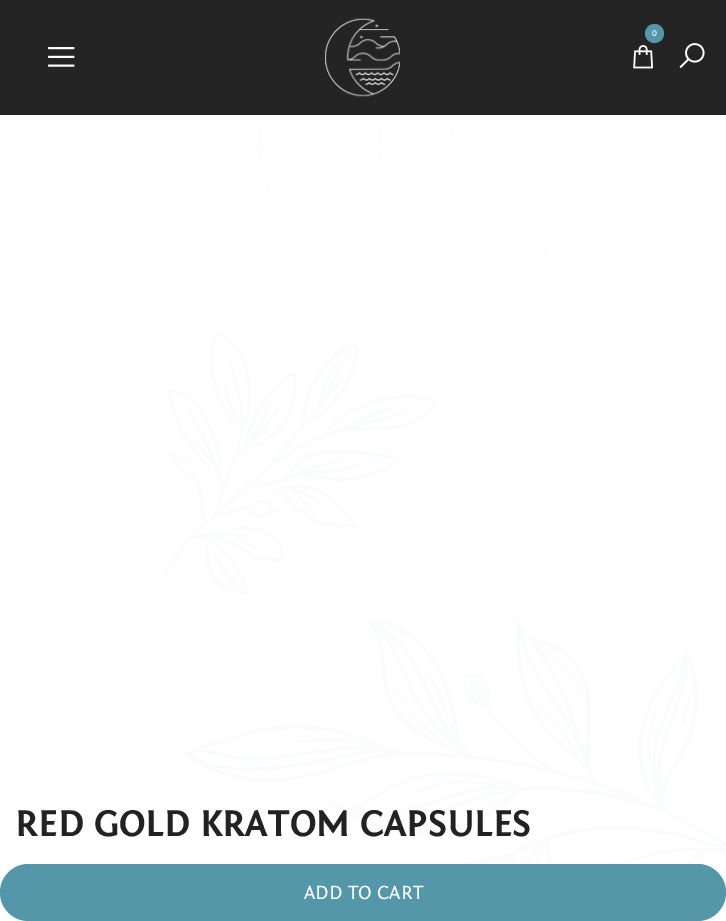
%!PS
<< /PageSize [726 921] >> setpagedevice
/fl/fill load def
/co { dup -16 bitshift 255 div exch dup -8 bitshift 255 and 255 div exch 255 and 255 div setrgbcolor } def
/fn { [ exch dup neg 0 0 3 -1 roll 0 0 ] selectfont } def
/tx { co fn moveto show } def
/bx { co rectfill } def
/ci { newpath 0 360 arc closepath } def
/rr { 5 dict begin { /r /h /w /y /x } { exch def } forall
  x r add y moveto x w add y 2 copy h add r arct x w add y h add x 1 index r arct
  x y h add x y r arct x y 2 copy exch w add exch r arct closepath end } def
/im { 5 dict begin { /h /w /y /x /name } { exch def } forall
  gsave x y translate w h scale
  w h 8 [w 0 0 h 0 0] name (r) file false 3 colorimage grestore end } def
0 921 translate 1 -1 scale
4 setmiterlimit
0 0 726 921 16#FFFFFF bx
0 0 726 115 16#242424 bx
(media/1.raw) 325 18 75 79 im
16#5497A9 co
654.5 33.5 9.5 ci fl
(media/2.raw) 633 45 20 24 im
(media/3.raw) 679 43 26 26 im
(media/4.raw) 48 47 27 20 im
(media/5.raw) 0 131 726 733 im
0 864 726 57 28.5 rr fl
(0) 652 36 /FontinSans-Regular 10 16#FFFFFF tx
(RED GOLD KRATOM CAPSULES) 15 836 /FontinSans-Bold 38.4 16#222222 tx
(ADD TO CART) 304 899 /FontinSans-Regular 20 16#FFFFFF tx
showpage
